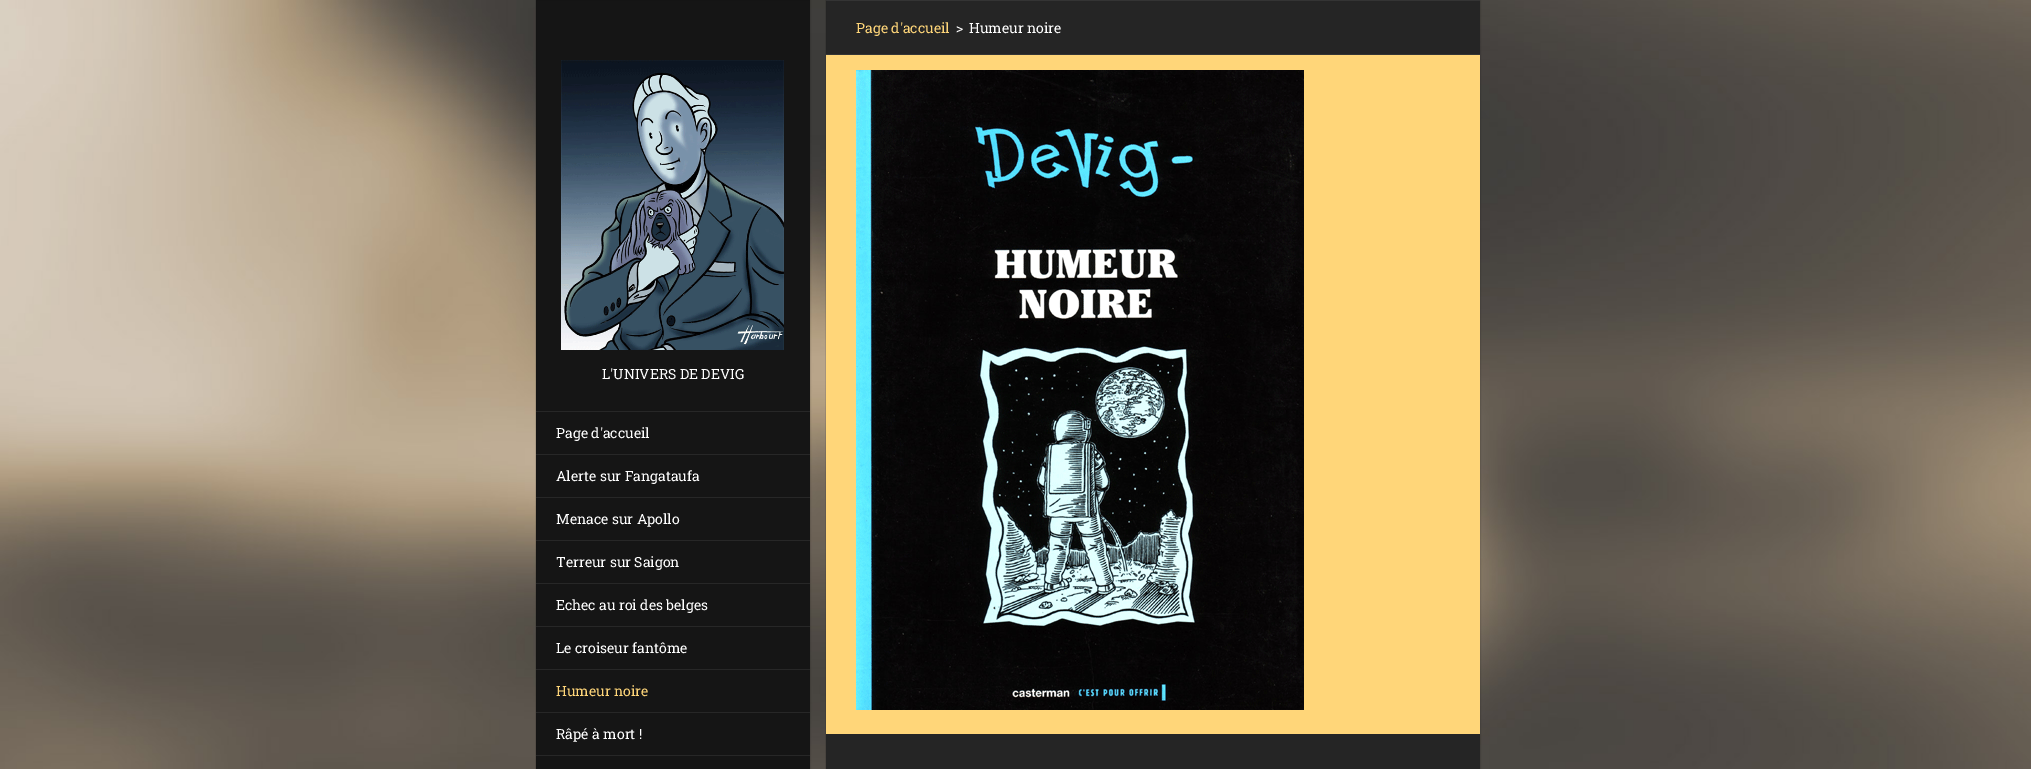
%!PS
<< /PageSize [2031 769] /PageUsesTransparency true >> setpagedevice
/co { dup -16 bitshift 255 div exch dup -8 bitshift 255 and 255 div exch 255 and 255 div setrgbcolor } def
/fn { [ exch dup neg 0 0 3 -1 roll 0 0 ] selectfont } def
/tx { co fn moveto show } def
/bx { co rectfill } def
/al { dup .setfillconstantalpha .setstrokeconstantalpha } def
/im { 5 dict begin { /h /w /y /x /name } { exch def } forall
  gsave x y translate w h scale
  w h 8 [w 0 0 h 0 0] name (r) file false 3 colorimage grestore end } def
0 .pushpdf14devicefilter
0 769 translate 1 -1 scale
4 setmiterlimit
0 0 2031 769 16#FFFFFF bx
(media/1.raw) 0 0 2031 769 im
826 1 654 53 16#252525 bx
826 0 654 1 16#353535 bx
0.1 al
16#000000 co
825.5 -.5 655 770 rectstroke
1 al
826 54 654 1 16#353535 bx
826 55 654 679 16#FFD679 bx
(media/2.raw) 856 70 448 640 im
826 734 654 35 16#252525 bx
536 0 274 769 16#151515 bx
0.1 al
16#000000 co
535.5 -.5 275 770 rectstroke
1 al
(media/3.raw) 561 60 223 290 im
536 411 274 1 16#272727 bx
536 454 274 1 16#272727 bx
536 497 274 1 16#272727 bx
536 540 274 1 16#272727 bx
536 583 274 1 16#272727 bx
536 626 274 1 16#272727 bx
536 669 274 1 16#272727 bx
536 712 274 1 16#272727 bx
536 755 274 1 16#272727 bx
(Page d'accueil) 856 33 /RobotoSlab-Regular 14 16#FFD679 tx
(>) 956 33 /RobotoSlab-Regular 14 16#FFFFFF tx
(Humeur noire) 969 33 /RobotoSlab-Regular 14 16#FFFFFF tx
(L'UNIVERS DE DEVIG) 602 379 /RobotoSlab-Regular 14 16#FFFFFF tx
(Page d'accueil) 556 438 /RobotoSlab-Regular 14 16#FFFFFF tx
(Alerte sur Fangataufa) 556 481 /RobotoSlab-Regular 14 16#FFFFFF tx
(Menace sur Apollo) 556 524 /RobotoSlab-Regular 14 16#FFFFFF tx
(Terreur sur Saigon) 556 567 /RobotoSlab-Regular 14 16#FFFFFF tx
(Echec au roi des belges) 556 610 /RobotoSlab-Regular 14 16#FFFFFF tx
(Le croiseur fantôme) 556 653 /RobotoSlab-Regular 14 16#FFFFFF tx
(Humeur noire) 556 696 /RobotoSlab-Regular 14 16#FFD679 tx
(Râpé à mort !) 556 739 /RobotoSlab-Regular 14 16#FFFFFF tx
.poppdf14devicefilter showpage
